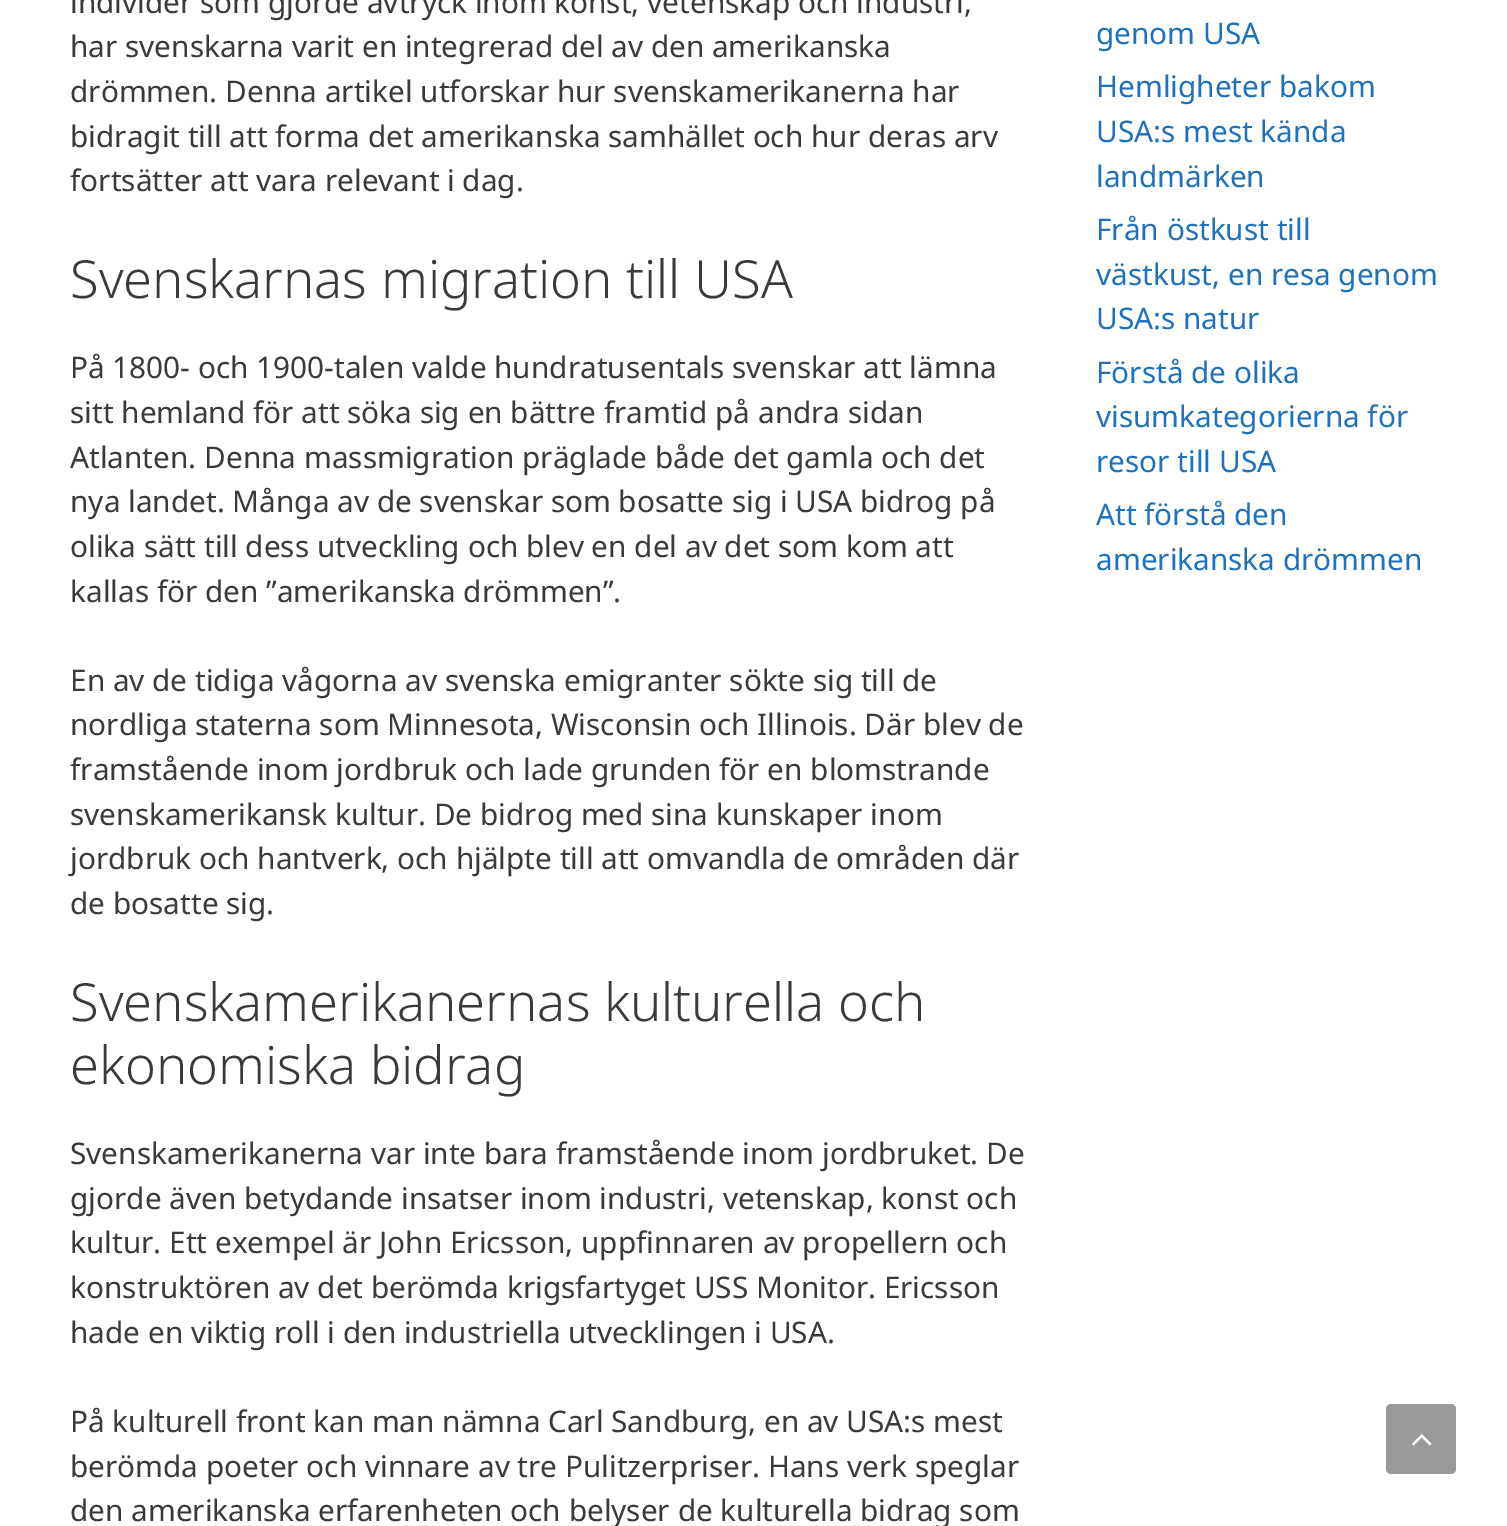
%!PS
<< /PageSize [1507 1526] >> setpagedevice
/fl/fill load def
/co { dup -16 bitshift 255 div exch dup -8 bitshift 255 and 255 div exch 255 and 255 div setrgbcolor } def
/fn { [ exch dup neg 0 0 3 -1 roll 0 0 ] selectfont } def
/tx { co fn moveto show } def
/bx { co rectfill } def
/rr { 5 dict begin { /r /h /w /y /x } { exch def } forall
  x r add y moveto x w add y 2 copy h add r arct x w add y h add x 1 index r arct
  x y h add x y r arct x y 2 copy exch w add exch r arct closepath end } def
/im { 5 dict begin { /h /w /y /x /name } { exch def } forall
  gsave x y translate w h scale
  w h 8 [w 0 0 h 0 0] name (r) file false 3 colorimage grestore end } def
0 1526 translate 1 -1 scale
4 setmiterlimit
0 0 1507 1526 16#FFFFFF bx
16#999999 co
1386 1404 70 70 5 rr fl
(media/1.raw) 1412 1434 20 12 im
(individer som gjorde avtryck inom konst, vetenskap och industri,) 70 13 /NotoSans-Regular 29.75 16#3A3A3A tx
(har svenskarna varit en integrerad del av den amerikanska) 70 57 /NotoSans-Regular 29.75 16#3A3A3A tx
(drömmen. Denna artikel utforskar hur svenskamerikanerna har) 70 102 /NotoSans-Regular 29.75 16#3A3A3A tx
(bidragit till att forma det amerikanska samhället och hur deras arv) 70 147 /NotoSans-Regular 29.75 16#3A3A3A tx
(fortsätter att vara relevant i dag.) 70 191 /NotoSans-Regular 29.75 16#3A3A3A tx
(Svenskarnas migration till USA) 70 298 /NotoSans-Light 52.5 16#3A3A3A tx
(På 1800- och 1900-talen valde hundratusentals svenskar att lämna) 70 378 /NotoSans-Regular 29.75 16#3A3A3A tx
(sitt hemland för att söka sig en bättre framtid på andra sidan) 70 423 /NotoSans-Regular 29.75 16#3A3A3A tx
(Atlanten. Denna massmigration präglade både det gamla och det) 70 468 /NotoSans-Regular 29.75 16#3A3A3A tx
(nya landet. Många av de svenskar som bosatte sig i USA bidrog på) 70 512 /NotoSans-Regular 29.75 16#3A3A3A tx
(olika sätt till dess utveckling och blev en del av det som kom att) 70 557 /NotoSans-Regular 29.75 16#3A3A3A tx
(kallas för den ”amerikanska drömmen”.) 70 602 /NotoSans-Regular 29.75 16#3A3A3A tx
(En av de tidiga vågorna av svenska emigranter sökte sig till de) 70 691 /NotoSans-Regular 29.75 16#3A3A3A tx
(nordliga staterna som Minnesota, Wisconsin och Illinois. Där blev de) 70 735 /NotoSans-Regular 29.75 16#3A3A3A tx
(framstående inom jordbruk och lade grunden för en blomstrande) 70 780 /NotoSans-Regular 29.75 16#3A3A3A tx
(svenskamerikansk kultur. De bidrog med sina kunskaper inom) 70 825 /NotoSans-Regular 29.75 16#3A3A3A tx
(jordbruk och hantverk, och hjälpte till att omvandla de områden där) 70 869 /NotoSans-Regular 29.75 16#3A3A3A tx
(de bosatte sig.) 70 914 /NotoSans-Regular 29.75 16#3A3A3A tx
(Svenskamerikanernas kulturella och) 70 1021 /NotoSans-Light 52.5 16#3A3A3A tx
(ekonomiska bidrag) 70 1084 /NotoSans-Light 52.5 16#3A3A3A tx
(Svenskamerikanerna var inte bara framstående inom jordbruket. De) 70 1164 /NotoSans-Regular 29.75 16#3A3A3A tx
(gjorde även betydande insatser inom industri, vetenskap, konst och) 70 1209 /NotoSans-Regular 29.75 16#3A3A3A tx
(kultur. Ett exempel är John Ericsson, uppfinnaren av propellern och) 70 1253 /NotoSans-Regular 29.75 16#3A3A3A tx
(konstruktören av det berömda krigsfartyget USS Monitor. Ericsson) 70 1298 /NotoSans-Regular 29.75 16#3A3A3A tx
(hade en viktig roll i den industriella utvecklingen i USA.) 70 1343 /NotoSans-Regular 29.75 16#3A3A3A tx
(På kulturell front kan man nämna Carl Sandburg, en av USA:s mest) 70 1432 /NotoSans-Regular 29.75 16#3A3A3A tx
(berömda poeter och vinnare av tre Pulitzerpriser. Hans verk speglar) 70 1477 /NotoSans-Regular 29.75 16#3A3A3A tx
(den amerikanska erfarenheten och belyser de kulturella bidrag som) 70 1521 /NotoSans-Regular 29.75 16#3A3A3A tx
(genom USA) 1096 44 /NotoSans-Regular 29.75 16#1E72BD tx
(Hemligheter bakom) 1096 97 /NotoSans-Regular 29.75 16#1E72BD tx
(USA:s mest kända) 1096 142 /NotoSans-Regular 29.75 16#1E72BD tx
(landmärken) 1096 187 /NotoSans-Regular 29.75 16#1E72BD tx
(Från östkust till) 1096 240 /NotoSans-Regular 29.75 16#1E72BD tx
(västkust, en resa genom) 1096 285 /NotoSans-Regular 29.75 16#1E72BD tx
(USA:s natur) 1096 329 /NotoSans-Regular 29.75 16#1E72BD tx
(Förstå de olika) 1096 383 /NotoSans-Regular 29.75 16#1E72BD tx
(visumkategorierna för) 1096 427 /NotoSans-Regular 29.75 16#1E72BD tx
(resor till USA) 1096 472 /NotoSans-Regular 29.75 16#1E72BD tx
(Att förstå den) 1096 525 /NotoSans-Regular 29.75 16#1E72BD tx
(amerikanska drömmen) 1096 570 /NotoSans-Regular 29.75 16#1E72BD tx
showpage
